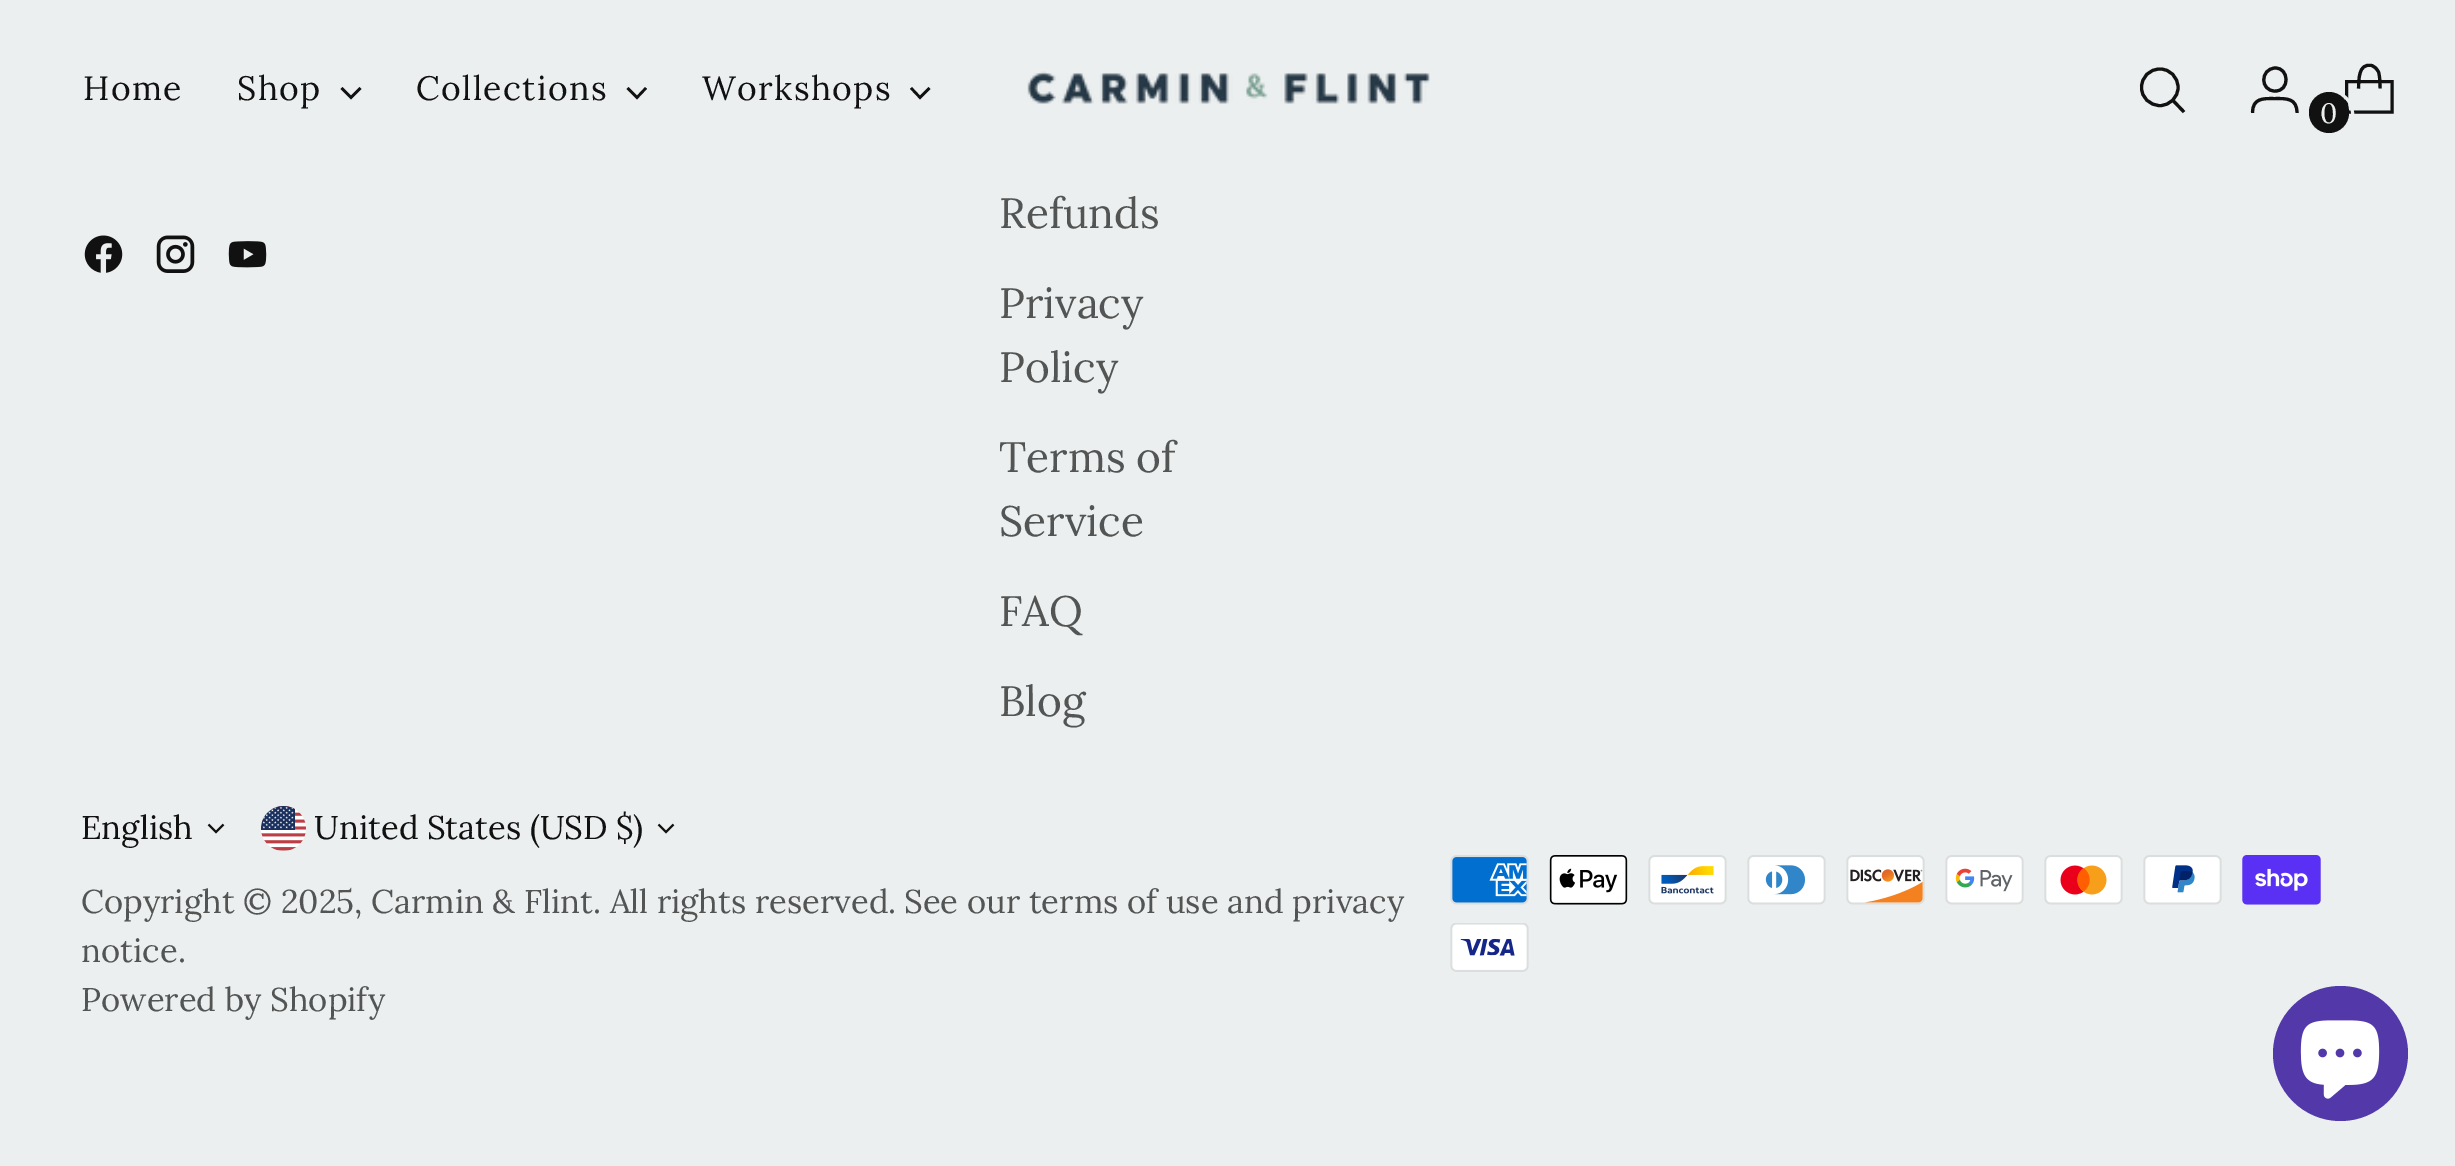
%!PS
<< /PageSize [2455 1166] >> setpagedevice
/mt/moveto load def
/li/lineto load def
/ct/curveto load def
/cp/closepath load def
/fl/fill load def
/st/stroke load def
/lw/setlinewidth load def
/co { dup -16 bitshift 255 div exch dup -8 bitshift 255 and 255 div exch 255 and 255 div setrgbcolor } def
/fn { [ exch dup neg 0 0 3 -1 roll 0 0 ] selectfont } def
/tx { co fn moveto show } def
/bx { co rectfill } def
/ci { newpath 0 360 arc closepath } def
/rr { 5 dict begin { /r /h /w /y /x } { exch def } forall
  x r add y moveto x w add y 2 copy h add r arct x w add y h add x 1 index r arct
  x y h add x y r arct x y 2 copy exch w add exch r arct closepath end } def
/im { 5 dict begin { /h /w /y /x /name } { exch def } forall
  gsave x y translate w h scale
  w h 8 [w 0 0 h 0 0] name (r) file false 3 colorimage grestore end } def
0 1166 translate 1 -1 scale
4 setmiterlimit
0 0 2455 1166 16#ECEFEF bx
16#111111 co
2.6 lw
341.5 88 mt 351 97.5 li 360.5 88 li st
627.5 88 mt 637 97.5 li 646 88 li st
911 88 mt 920 97.5 li 929.5 88 li st
(media/1.raw) 1027 71 403 33 im
3.1 lw
1 setlinecap
2160 105.5 mt 2170 105.5 2178 97.5 2178 87.5 ct 2178 77 2170 69 2160 69 ct 2149.5 69 2141.5 77 2141.5 87.5 ct 2141.5 97.5 2149.5 105.5 2160 105.5 ct cp st
0 setlinecap
2173 100.5 mt 2184 112 li st
2275 91 mt 2290 91.5 2289.5 67.5 2275 68 ct 2260 69 2260 91 2275 91 ct cp 2252.5 113 mt 2252.5 98 2263 98.5 2274.5 98.5 ct 2286.5 98.5 2297 98 2297 113 ct st
2 setlinejoin
2380 88.5 mt 2380 83 2380 77 2378.5 72 ct 2377 69 2375 66.5 2371.5 65.5 ct 2358 63 2359 80 2358.5 88.5 ct st
0 setlinejoin
2392 112 mt 2392 81.5 li 2346.5 81.5 li 2346.5 112 li cp st
16#ECEFEF co
3 lw
2307.5 91.5 45 44 22 rr st
16#111111 co
2309 92 40 41 20 rr fl
(media/2.raw) 84 235 39 38 im
(media/3.raw) 156 235 39 38 im
(media/4.raw) 228 241 39 27 im
2.1 lw
208.5 824.5 mt 216 832 li 223.5 824.5 li st
(media/5.raw) 261 806 45 45 im
658.5 824.5 mt 666 832 li 673.5 824.5 li st
(media/6.raw) 1450 855 79 50 im
(media/7.raw) 1549 855 79 50 im
(media/8.raw) 1648 855 79 50 im
(media/9.raw) 1747 855 79 50 im
(media/10.raw) 1846 855 79 50 im
(media/11.raw) 1945 855 79 50 im
(media/12.raw) 2044 855 79 50 im
(media/13.raw) 2143 855 79 50 im
(media/14.raw) 2242 855 79 50 im
(media/15.raw) 1450 923 79 49 im
16#5238A9 co
2340.5 1053.5 67.5 ci fl
(media/16.raw) 2300 1020 80 79 im
/Lora-Regular 33.75 fn
16#111111 co
83 100 mt 1.4 0 (Home) ashow
237 100 mt 1.4 0 (Shop) ashow
416 100 mt 1.4 0 (Collections) ashow
702 100 mt 1.4 0 (Workshops) ashow
(0) 2320 123 /Lora-Regular 28 16#ECEFEF tx
(Refunds) 999 228 /Lora-Regular 42.5 16#535454 tx
(Privacy) 999 318 /Lora-Regular 42.5 16#535454 tx
(Policy) 999 382 /Lora-Regular 42.5 16#535454 tx
(Terms of) 999 472 /Lora-Regular 42.5 16#535454 tx
(Service) 999 536 /Lora-Regular 42.5 16#535454 tx
(FAQ) 999 626 /Lora-Regular 42.5 16#535454 tx
(Blog) 999 716 /Lora-Regular 42.5 16#535454 tx
(English) 81 839 /Lora-Regular 32.9 16#111111 tx
(United States \(USD) 314 839 /Lora-Regular 32.9 16#111111 tx
($\)) 616 839 /Lora-Regular 32.9 16#111111 tx
(Copyright © 2025,) 81 913 /Lora-Regular 32.9 16#535454 tx
(Carmin & Flint. All rights reserved.) 371 913 /Lora-Regular 32.9 16#535454 tx
(See our terms of use and privacy) 904 913 /Lora-Regular 32.9 16#535454 tx
(notice.) 81 962 /Lora-Regular 32.9 16#535454 tx
(Powered by Shopify) 81 1011 /Lora-Regular 32.9 16#535454 tx
showpage
